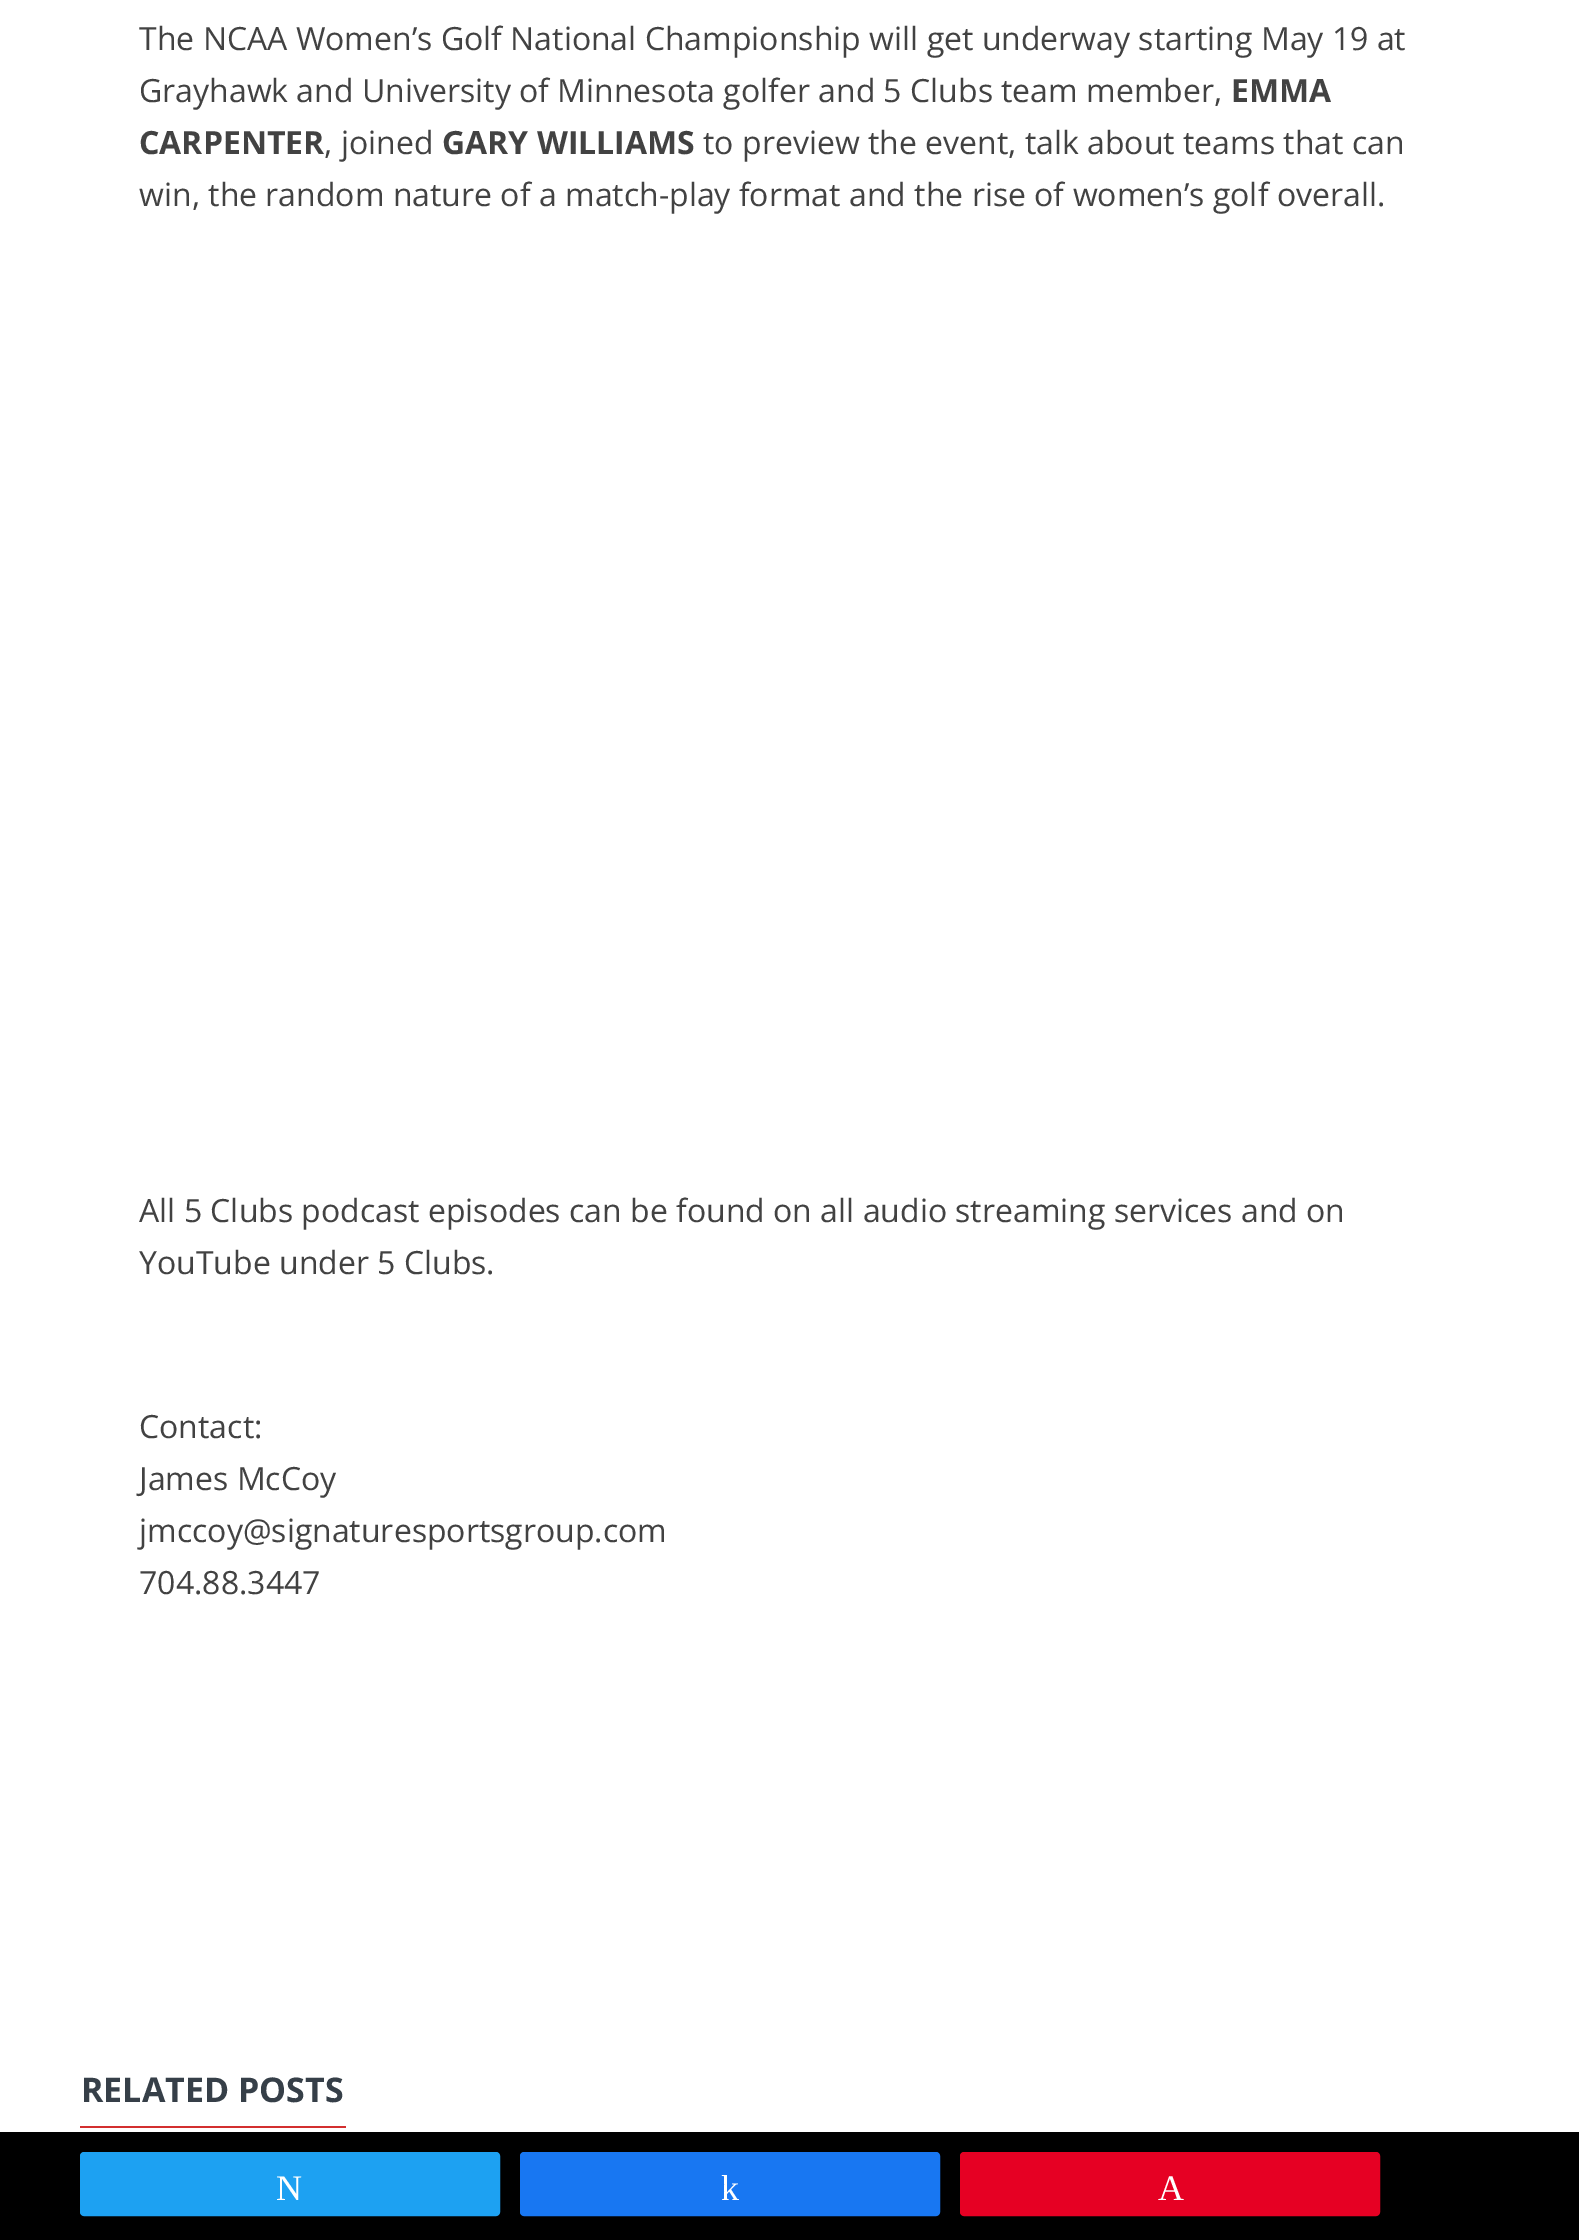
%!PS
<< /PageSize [1579 2240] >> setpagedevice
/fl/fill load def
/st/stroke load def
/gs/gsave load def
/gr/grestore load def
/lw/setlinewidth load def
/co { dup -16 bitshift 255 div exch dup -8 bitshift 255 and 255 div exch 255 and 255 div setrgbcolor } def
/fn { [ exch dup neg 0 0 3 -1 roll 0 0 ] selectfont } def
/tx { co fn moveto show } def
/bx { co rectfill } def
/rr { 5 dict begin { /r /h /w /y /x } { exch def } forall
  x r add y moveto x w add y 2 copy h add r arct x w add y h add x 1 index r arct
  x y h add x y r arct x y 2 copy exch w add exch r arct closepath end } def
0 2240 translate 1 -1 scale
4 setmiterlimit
0 0 1579 2240 16#FFFFFF bx
80 2126 266 2 16#D32F2F bx
0 2132 1579 108 16#000000 bx
16#1DA1F2 co
81 2153 418 62 3 rr gs fl gr
2 lw
st
16#1877F2 co
521 2153 418 62 3 rr gs fl gr
st
16#E60023 co
961 2153 418 62 3 rr gs fl gr
st
(The NCAA Women’s Golf National Championship will get underway starting May 19 at) 139 50 /OpenSans-Regular 32 16#424242 tx
(Grayhawk and University of Minnesota golfer and 5 Clubs team member,) 139 102 /OpenSans-Regular 32 16#424242 tx
(EMMA) 1231 102 /OpenSans-Bold 32 16#424242 tx
(CARPENTER) 139 154 /OpenSans-Bold 32 16#424242 tx
(, joined) 324 154 /OpenSans-Regular 32 16#424242 tx
(GARY WILLIAMS) 442 154 /OpenSans-Bold 32 16#424242 tx
(to preview the event, talk about teams that can) 703 154 /OpenSans-Regular 32 16#424242 tx
(win, the random nature of a match-play format and the rise of women’s golf overall.) 139 206 /OpenSans-Regular 32 16#424242 tx
(All 5 Clubs podcast episodes can be found on all audio streaming services and on) 139 1222 /OpenSans-Regular 32 16#424242 tx
(YouTube under 5 Clubs.) 139 1274 /OpenSans-Regular 32 16#424242 tx
(Contact:) 139 1438 /OpenSans-Regular 32 16#424242 tx
(James McCoy) 139 1490 /OpenSans-Regular 32 16#424242 tx
(jmccoy@signaturesportsgroup.com) 139 1542 /OpenSans-Regular 32 16#424242 tx
(704.88.3447) 139 1594 /OpenSans-Regular 32 16#424242 tx
(RELATED POSTS) 81 2102 /OpenSans-Bold 34 16#363F48 tx
(N) 276 2200 /LiberationSerif-Regular 36 16#FFFFFF tx
(k) 721 2200 /LiberationSerif-Regular 36 16#FFFFFF tx
(A) 1158 2200 /LiberationSerif-Regular 36 16#FFFFFF tx
showpage
